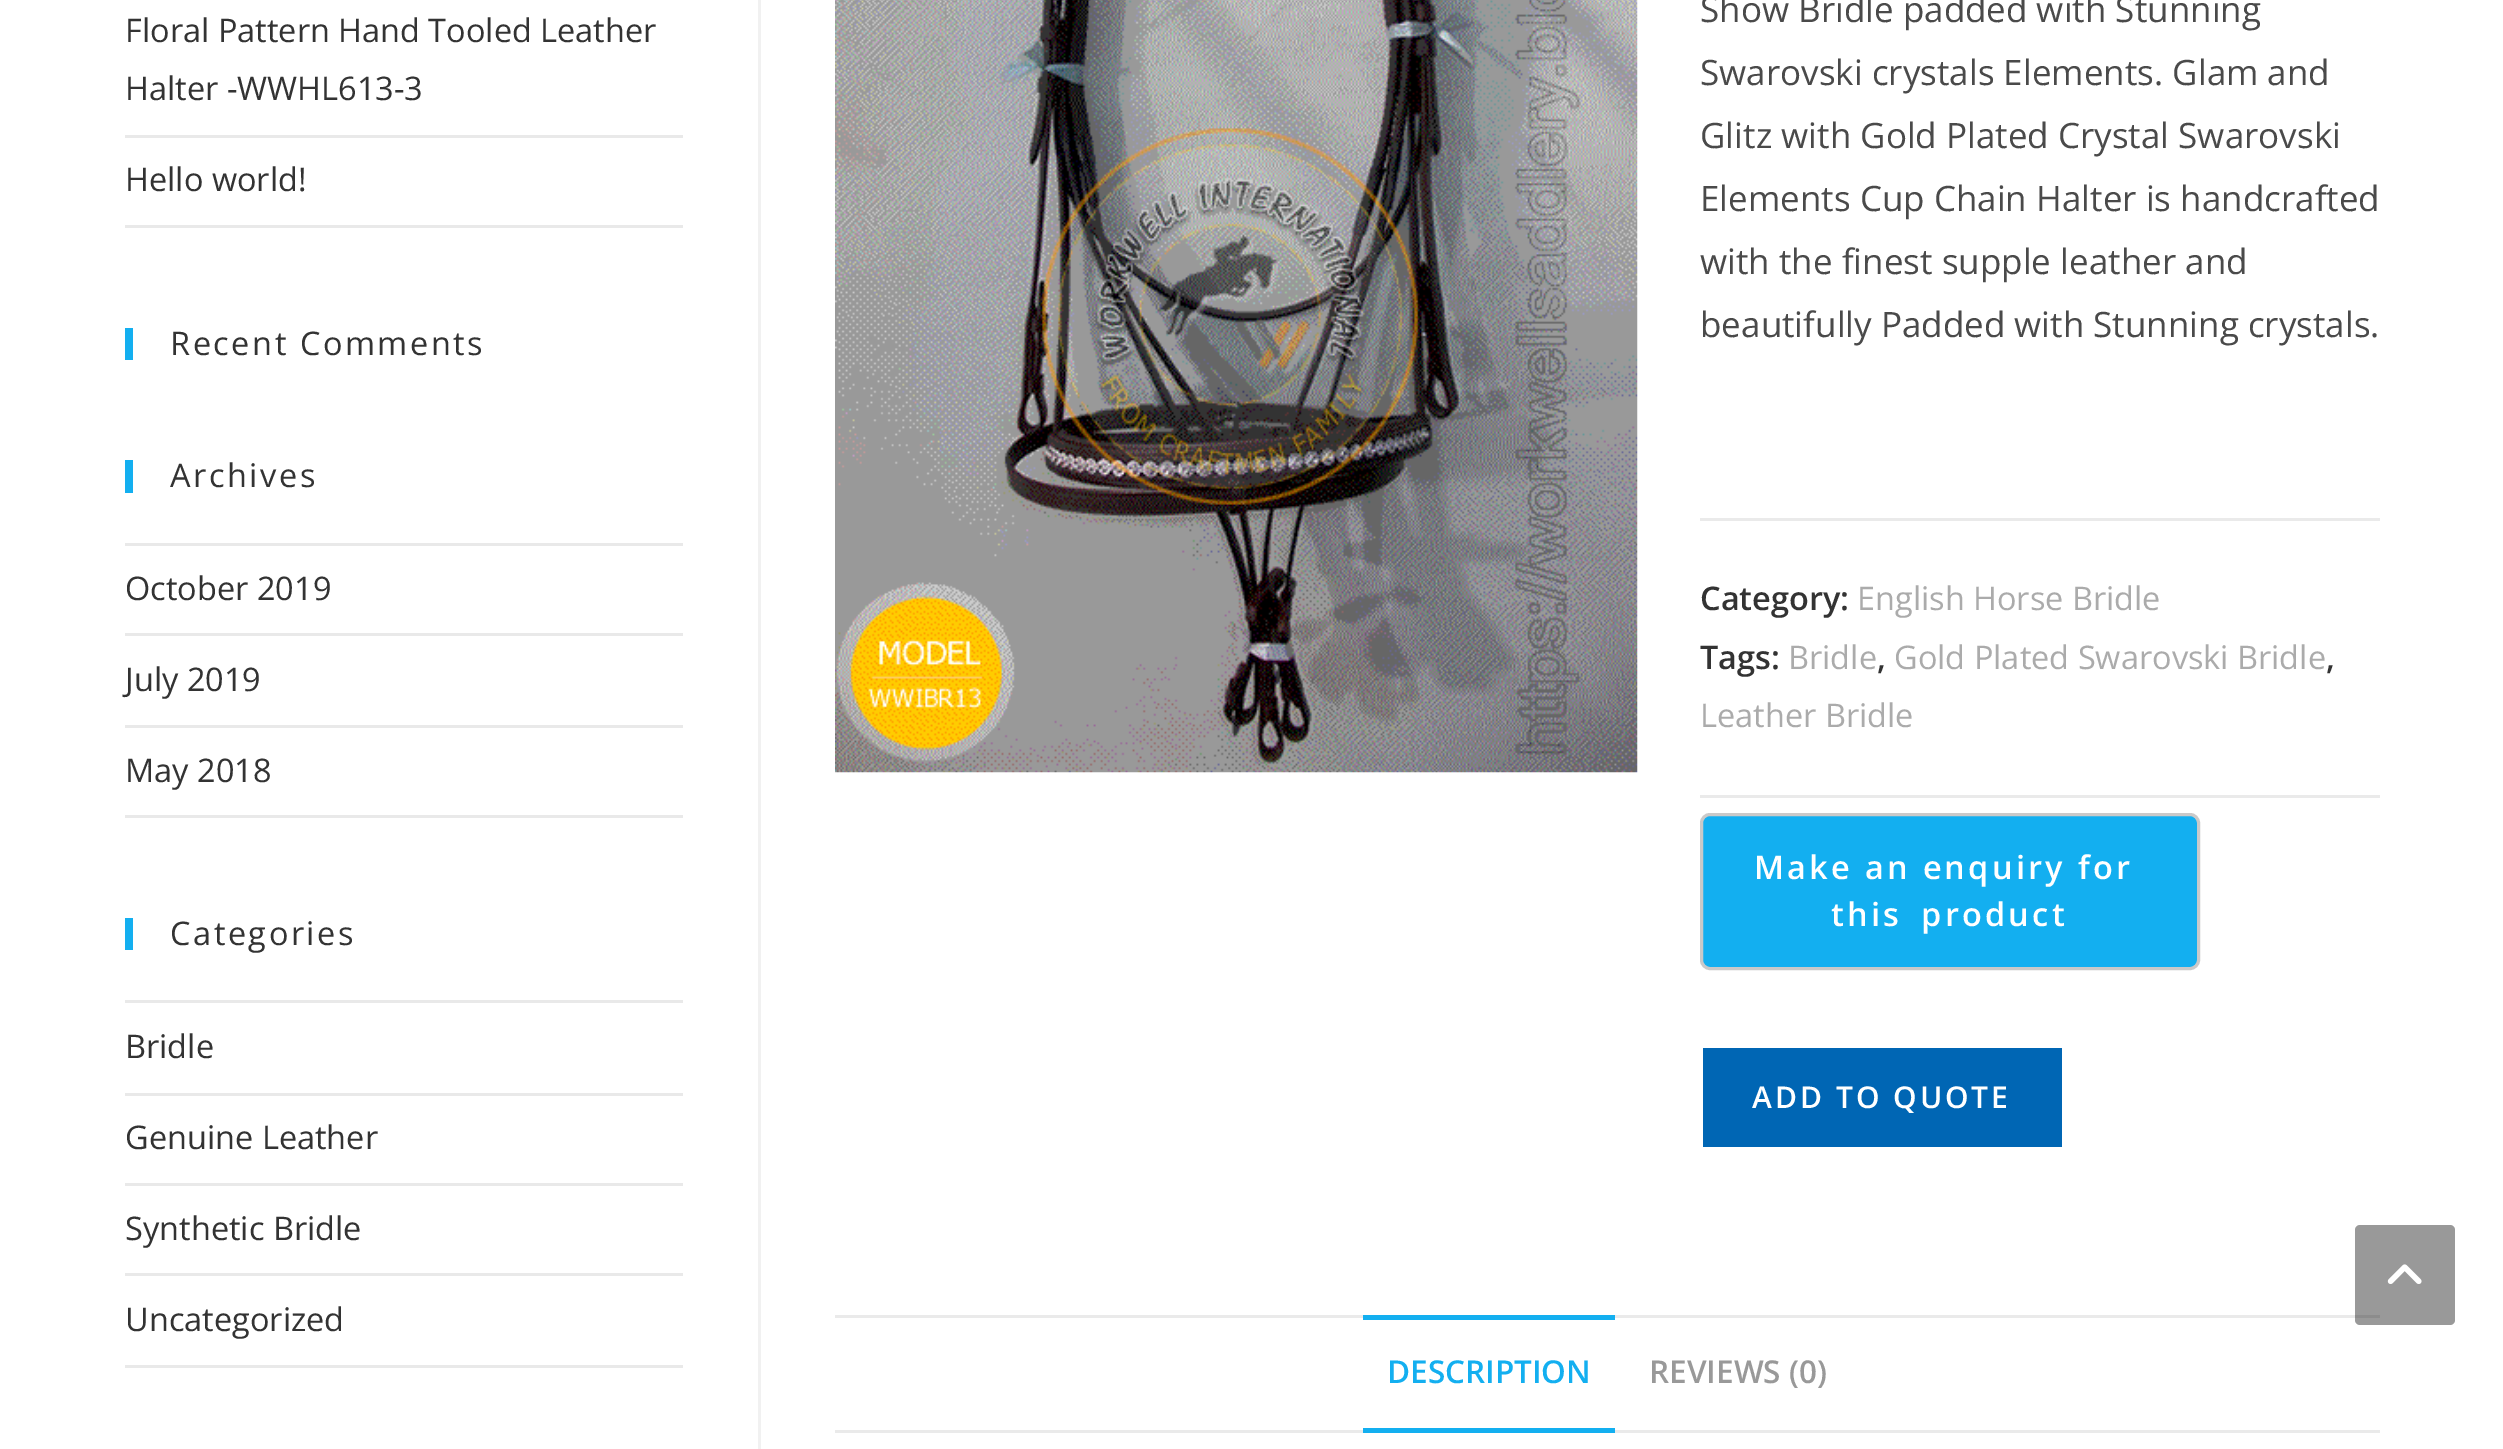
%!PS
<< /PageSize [2503 1449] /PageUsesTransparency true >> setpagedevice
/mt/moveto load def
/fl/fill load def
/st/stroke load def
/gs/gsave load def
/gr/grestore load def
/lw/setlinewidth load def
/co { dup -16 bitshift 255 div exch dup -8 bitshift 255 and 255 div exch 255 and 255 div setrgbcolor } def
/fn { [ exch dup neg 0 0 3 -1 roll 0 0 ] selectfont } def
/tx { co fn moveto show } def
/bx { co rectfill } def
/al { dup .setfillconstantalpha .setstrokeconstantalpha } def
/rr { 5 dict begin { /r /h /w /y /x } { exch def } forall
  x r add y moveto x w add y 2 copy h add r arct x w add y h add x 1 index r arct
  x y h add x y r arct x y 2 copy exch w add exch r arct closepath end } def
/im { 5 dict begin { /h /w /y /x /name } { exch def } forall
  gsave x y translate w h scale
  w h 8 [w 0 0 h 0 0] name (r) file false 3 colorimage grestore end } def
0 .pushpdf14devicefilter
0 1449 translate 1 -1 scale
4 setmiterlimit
0 0 2503 1449 16#FFFFFF bx
125 135 558 3 16#E9E9E9 bx
125 225 558 3 16#E9E9E9 bx
125 328 8 32 16#13AFF0 bx
125 460 8 33 16#13AFF0 bx
125 543 558 3 16#E9E9E9 bx
125 633 558 3 16#E9E9E9 bx
125 725 558 3 16#E9E9E9 bx
125 815 558 3 16#E9E9E9 bx
125 918 8 32 16#13AFF0 bx
125 1000 558 3 16#E9E9E9 bx
125 1093 558 3 16#E9E9E9 bx
125 1183 558 3 16#E9E9E9 bx
125 1273 558 3 16#E9E9E9 bx
125 1365 558 3 16#E9E9E9 bx
758 0 3 1449 16#F1F1F1 bx
(media/1.raw) 835 0 803 773 im
1700 518 680 3 16#EAEAEA bx
1700 795 680 3 16#EAEAEA bx
16#13AFF0 co
1701.5 814.5 497 154 8.5 rr gs fl gr
16#CAC9C9 co
3 lw
st
1703 1048 359 99 16#0066B4 bx
835 1315 1545 3 16#EAEAEA bx
835 1430 1545 3 16#EAEAEA bx
1363 1315 252 5 16#13AFF0 bx
1363 1428 252 5 16#13AFF0 bx
0.4 al
16#000000 co
2355 1225 100 100 5 rr fl
1 al
(media/2.raw) 2387 1264 35 20 im
(Floral Pattern Hand Tooled Leather) 125 42 /OpenSans-Regular 32.5 16#333333 tx
(Halter -WWHL613-3) 125 100 /OpenSans-Regular 32.5 16#333333 tx
(Hello world!) 125 191 /OpenSans-Regular 32.5 16#333333 tx
170 355 mt 2.5 0 (Recent Comments) ashow
170 487 mt 2.5 0 (Archives) ashow
(October 2019) 125 600 /OpenSans-Regular 32.5 16#333333 tx
(July 2019) 125 691 /OpenSans-Regular 32.5 16#333333 tx
(May 2018) 125 782 /OpenSans-Regular 32.5 16#333333 tx
170 945 mt 2.5 0 (Categories) ashow
(Bridle) 125 1058 /OpenSans-Regular 32.5 16#333333 tx
(Genuine Leather) 125 1149 /OpenSans-Regular 32.5 16#333333 tx
(Synthetic Bridle) 125 1240 /OpenSans-Regular 32.5 16#333333 tx
(Uncategorized) 125 1331 /OpenSans-Regular 32.5 16#333333 tx
(Show Bridle padded with Stunning) 1700 22 /OpenSans-Regular 35 16#4A4A4A tx
(Swarovski crystals Elements. Glam and) 1700 85 /OpenSans-Regular 35 16#4A4A4A tx
(Glitz with Gold Plated Crystal Swarovski) 1700 148 /OpenSans-Regular 35 16#4A4A4A tx
(Elements Cup Chain Halter is handcrafted) 1700 211 /OpenSans-Regular 35 16#4A4A4A tx
(with the finest supple leather and) 1700 274 /OpenSans-Regular 35 16#4A4A4A tx
(beautifully Padded with Stunning crystals.) 1700 337 /OpenSans-Regular 35 16#4A4A4A tx
(Category:) 1700 610 /OpenSans-SemiBold 32.5 16#333333 tx
(English Horse Bridle) 1857 610 /OpenSans-Regular 32.5 16#ABABAB tx
(Tags:) 1700 669 /OpenSans-SemiBold 32.5 16#333333 tx
(Bridle) 1788 669 /OpenSans-Regular 32.5 16#ABABAB tx
(,) 1877 669 /OpenSans-SemiBold 32.5 16#333333 tx
(Gold Plated Swarovski Bridle) 1894 669 /OpenSans-Regular 32.5 16#ABABAB tx
(,) 2326 669 /OpenSans-SemiBold 32.5 16#333333 tx
(Leather Bridle) 1700 727 /OpenSans-Regular 32.5 16#ABABAB tx
/OpenSans-SemiBold 32.5 fn
16#FFFFFF co
1754 879 mt 3.25 0 (Make an enquiry for) ashow
1831 926 mt 7 0 32 3.25 0 (this product) awidthshow
/OpenSans-SemiBold 30 fn
1752 1108 mt 3 0 (ADD TO QUOTE) ashow
(DESCRIPTION) 1387 1383 /OpenSans-SemiBold 31.5 16#13AFF0 tx
(REVIEWS \(0\)) 1649 1383 /OpenSans-SemiBold 31.5 16#999999 tx
.poppdf14devicefilter showpage
